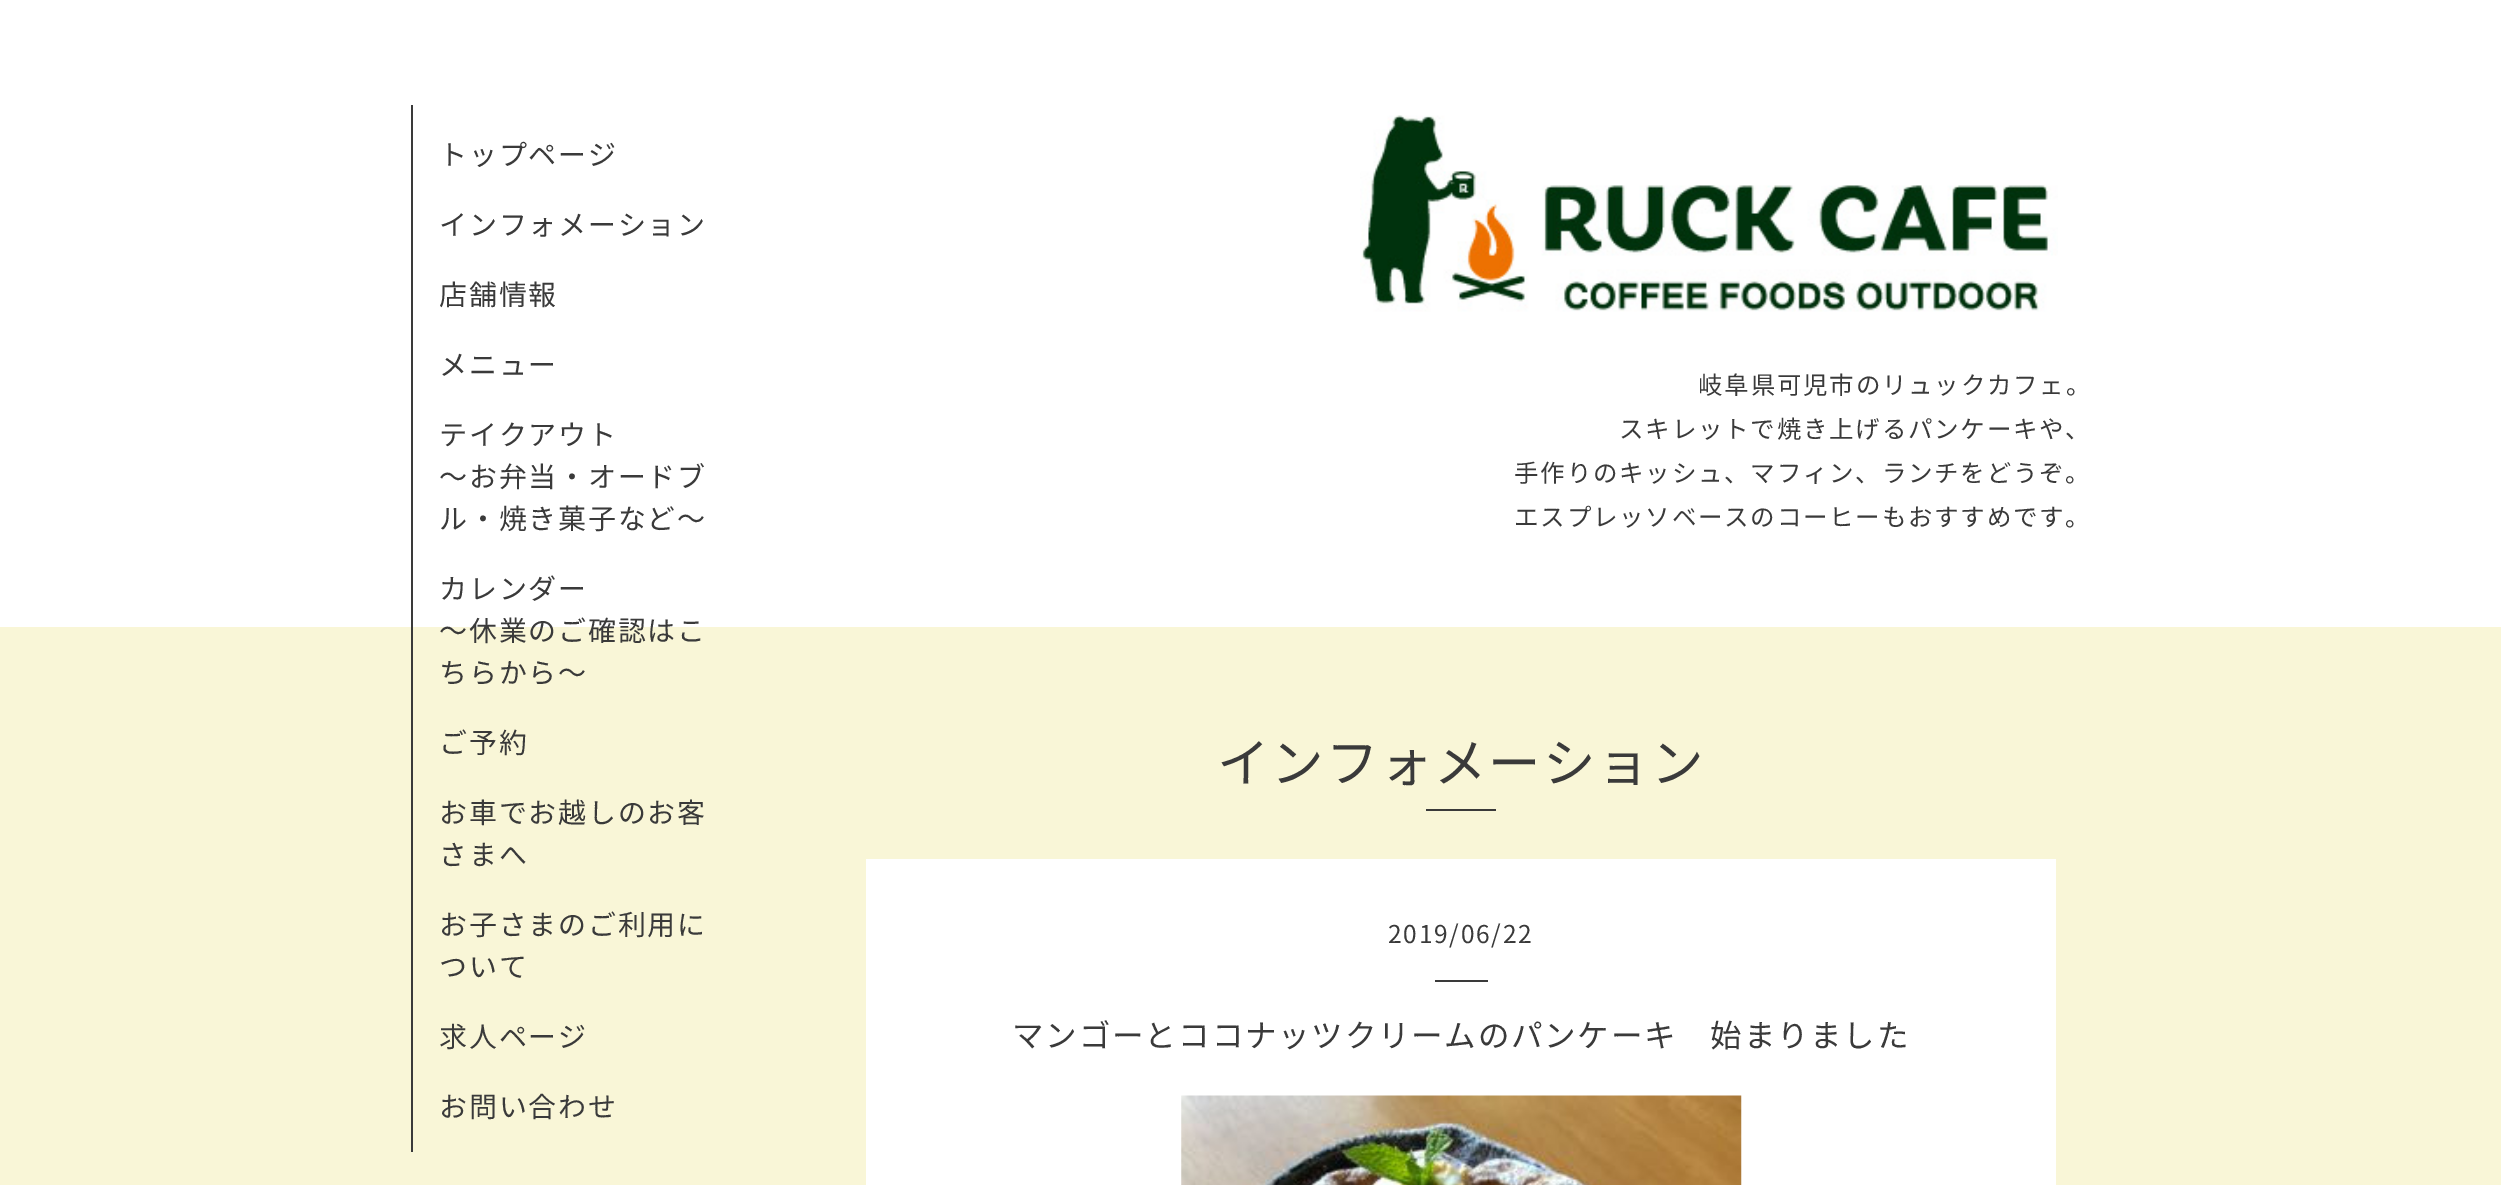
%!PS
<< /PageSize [2501 1185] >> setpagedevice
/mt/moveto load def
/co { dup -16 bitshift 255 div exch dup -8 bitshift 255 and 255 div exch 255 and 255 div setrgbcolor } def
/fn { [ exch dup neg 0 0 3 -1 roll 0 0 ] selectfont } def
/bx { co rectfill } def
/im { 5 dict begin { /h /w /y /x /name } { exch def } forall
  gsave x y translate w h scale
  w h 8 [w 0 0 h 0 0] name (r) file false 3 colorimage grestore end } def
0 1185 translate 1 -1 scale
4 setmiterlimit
0 0 2501 1185 16#FFFFFF bx
0 627 2501 558 16#F9F6D7 bx
411 105 2 1047 16#3A3A3A bx
(media/1.raw) 1360 115 698 197 im
1426 809 70 2 16#3A3A3A bx
866 859 1190 326 16#FFFFFF bx
1435 980 53 2 16#3A3A3A bx
(media/2.raw) 1181 1095 561 90 im
/NotoSansJP-Regular 28 fn
439 165 mt 1.75 0 (トップページ) ashow
439 235 mt 1.75 0 (インフォメーション) ashow
439 305 mt 1.75 0 (店舗情報) ashow
439 375 mt 1.75 0 (メニュー) ashow
439 445 mt 1.75 0 (テイクアウト) ashow
439 487 mt 1.75 0 (〜お弁当・オードブ) ashow
439 529 mt 1.75 0 (ル・焼き菓子など〜) ashow
439 599 mt 1.75 0 (カレンダー) ashow
439 641 mt 1.75 0 (〜休業のご確認はこ) ashow
439 683 mt 1.75 0 (ちらから〜) ashow
439 753 mt 1.75 0 (ご予約) ashow
439 823 mt 1.75 0 (お車でお越しのお客) ashow
439 865 mt 1.75 0 (さまへ) ashow
439 935 mt 1.75 0 (お子さまのご利用に) ashow
439 977 mt 1.75 0 (ついて) ashow
439 1047 mt 1.75 0 (求人ページ) ashow
439 1117 mt 1.75 0 (お問い合わせ) ashow
/NotoSansJP-Regular 24.5 fn
1698 394 mt 1.75 0 (岐阜県可児市のリュックカフェ。) ashow
1619 438 mt 1.75 0 (スキレットで焼き上げるパンケーキや、) ashow
1514 482 mt 1.75 0 (手作りのキッシュ、マフィン、ランチをどうぞ。) ashow
1514 526 mt 1.75 0 (エスプレッソベースのコーヒーもおすすめです。) ashow
/NotoSansJP-Regular 52.5 fn
1217 782 mt 1.75 0 (インフォメーション) ashow
/NotoSansJP-Regular 24.5 fn
1388 943 mt 1.75 0 (2019/06/22) ashow
/NotoSansJP-Regular 31.5 fn
1012 1047 mt 1.75 0 (マンゴーとココナッツクリームのパンケーキ　始まりました) ashow
showpage
